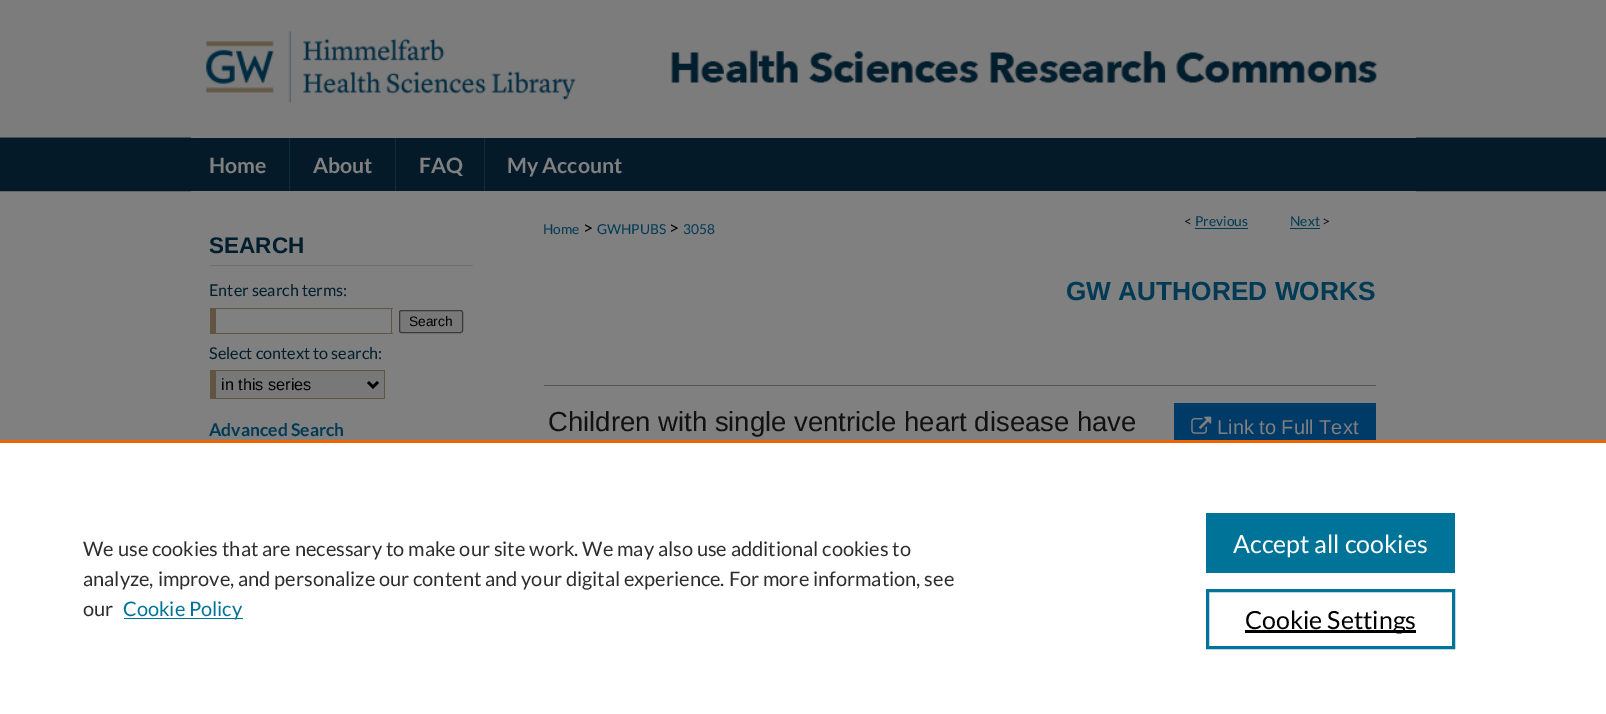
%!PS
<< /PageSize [1606 714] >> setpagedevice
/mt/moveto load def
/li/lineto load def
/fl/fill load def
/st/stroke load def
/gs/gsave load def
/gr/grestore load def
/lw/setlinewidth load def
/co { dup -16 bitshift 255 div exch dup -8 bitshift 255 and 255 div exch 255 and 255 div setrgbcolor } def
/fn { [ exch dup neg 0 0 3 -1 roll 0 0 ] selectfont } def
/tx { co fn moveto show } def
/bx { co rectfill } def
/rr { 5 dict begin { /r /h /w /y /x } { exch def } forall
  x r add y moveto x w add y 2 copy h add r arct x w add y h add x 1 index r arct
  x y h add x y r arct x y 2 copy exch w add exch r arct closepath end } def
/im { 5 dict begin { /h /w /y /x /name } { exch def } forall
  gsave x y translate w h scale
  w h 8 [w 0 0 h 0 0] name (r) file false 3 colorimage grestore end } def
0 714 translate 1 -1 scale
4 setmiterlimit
0 0 1606 714 16#808080 bx
(media/1.raw) 0 0 1606 192 im
191 137 1225 1 16#7C7C7C bx
(media/2.raw) 206 31 1211 107 im
(media/3.raw) 208 31 369 72 im
289 138 1 53 16#102B3B bx
395 138 1 53 16#102B3B bx
484 138 1 53 16#102B3B bx
191 191 1225 1 16#808080 bx
1416 191 1 1 16#676B6E bx
210 265 263 1 16#6F6F6F bx
210 308 183 1 16#615440 bx
391 308 1 26 16#615440 bx
210 333 183 1 16#615440 bx
210 308 6 26 16#615440 bx
16#787878 co
399.5 310.5 63 22 2 rr gs fl gr
16#3B3B3B co
st
216 371 168 27 16#787878 bx
210 370 175 1 16#615440 bx
384 370 1 29 16#615440 bx
210 398 175 1 16#615440 bx
210 370 6 29 16#615440 bx
16#000000 co
2.5 lw
368 382 mt 373 387 li 378 382 li st
1195 228 53 1 16#003A55 bx
1290 228 30 1 16#003A55 bx
544 385 832 1 16#555555 bx
1174 403 202 37 16#003A66 bx
(media/4.raw) 1191 416 21 18 im
0 443 1606 271 16#FFFFFF bx
0 440 1606 3 16#EB6500 bx
124 618 119 1 16#007398 bx
1206 513 249 60 16#007398 bx
3 lw
1207.5 590.5 246 57 rectstroke
1245 630 171 3 16#000000 bx
(Home) 209 173 /Lato-Bold 21.25 16#808080 tx
(About) 313 173 /Lato-Bold 21.25 16#808080 tx
(FAQ) 419 173 /Lato-Bold 21.25 16#808080 tx
(My Account) 507 173 /Lato-Bold 21.25 16#808080 tx
(SEARCH) 209 253 /LiberationSans-Bold 22.5 16#001E2D tx
(Enter search terms:) 209 296 /Lato-Regular 16.25 16#001E2D tx
(Search) 409 326 /LiberationSans-Regular 13.75 16#000000 tx
(Select context to search:) 209 359 /Lato-Regular 16.25 16#001E2D tx
(in this series) 221 390 /LiberationSans-Regular 16.25 16#000000 tx
(Advanced Search) 209 436 /Lato-Bold 17.5 16#003A55 tx
(<) 1184 226 /Lato-Regular 13.75 16#111111 tx
(Previous) 1195 226 /Lato-Regular 13.75 16#003A55 tx
(Next) 1290 226 /Lato-Regular 13.75 16#003A55 tx
(>) 1322 226 /Lato-Regular 13.75 16#111111 tx
(Home) 543 234 /Lato-Regular 13.75 16#003A55 tx
(>) 583 234 /Lato-Regular 17.5 16#000000 tx
(GWHPUBS) 597 234 /Lato-Regular 13.75 16#003A55 tx
(>) 669 234 /Lato-Regular 17.5 16#000000 tx
(3058) 683 234 /Lato-Regular 13.75 16#003A55 tx
(GW AUTHORED WORKS) 1066 300 /LiberationSans-Bold 26.25 16#003A55 tx
(Children with single ventricle heart disease have) 548 431 /LiberationSans-Regular 27.5 16#111111 tx
(Link to Full Text) 1217 434 /LiberationSans-Regular 20 16#808080 tx
(We use cookies that are necessary to make our site work. We may also use additional cookies to) 83 556 /Lato-Regular 20 16#2E2E2E tx
(analyze, improve, and personalize our content and your digital experience. For more information, see) 83 586 /Lato-Regular 20 16#2E2E2E tx
(our) 83 616 /Lato-Regular 20 16#2E2E2E tx
(Cookie Policy) 123 616 /Lato-Regular 20 16#007398 tx
(Accept all cookies) 1233 553 /Lato-Regular 25 16#FFFFFF tx
(Cookie Settings) 1245 629 /Lato-Regular 25 16#000000 tx
showpage
